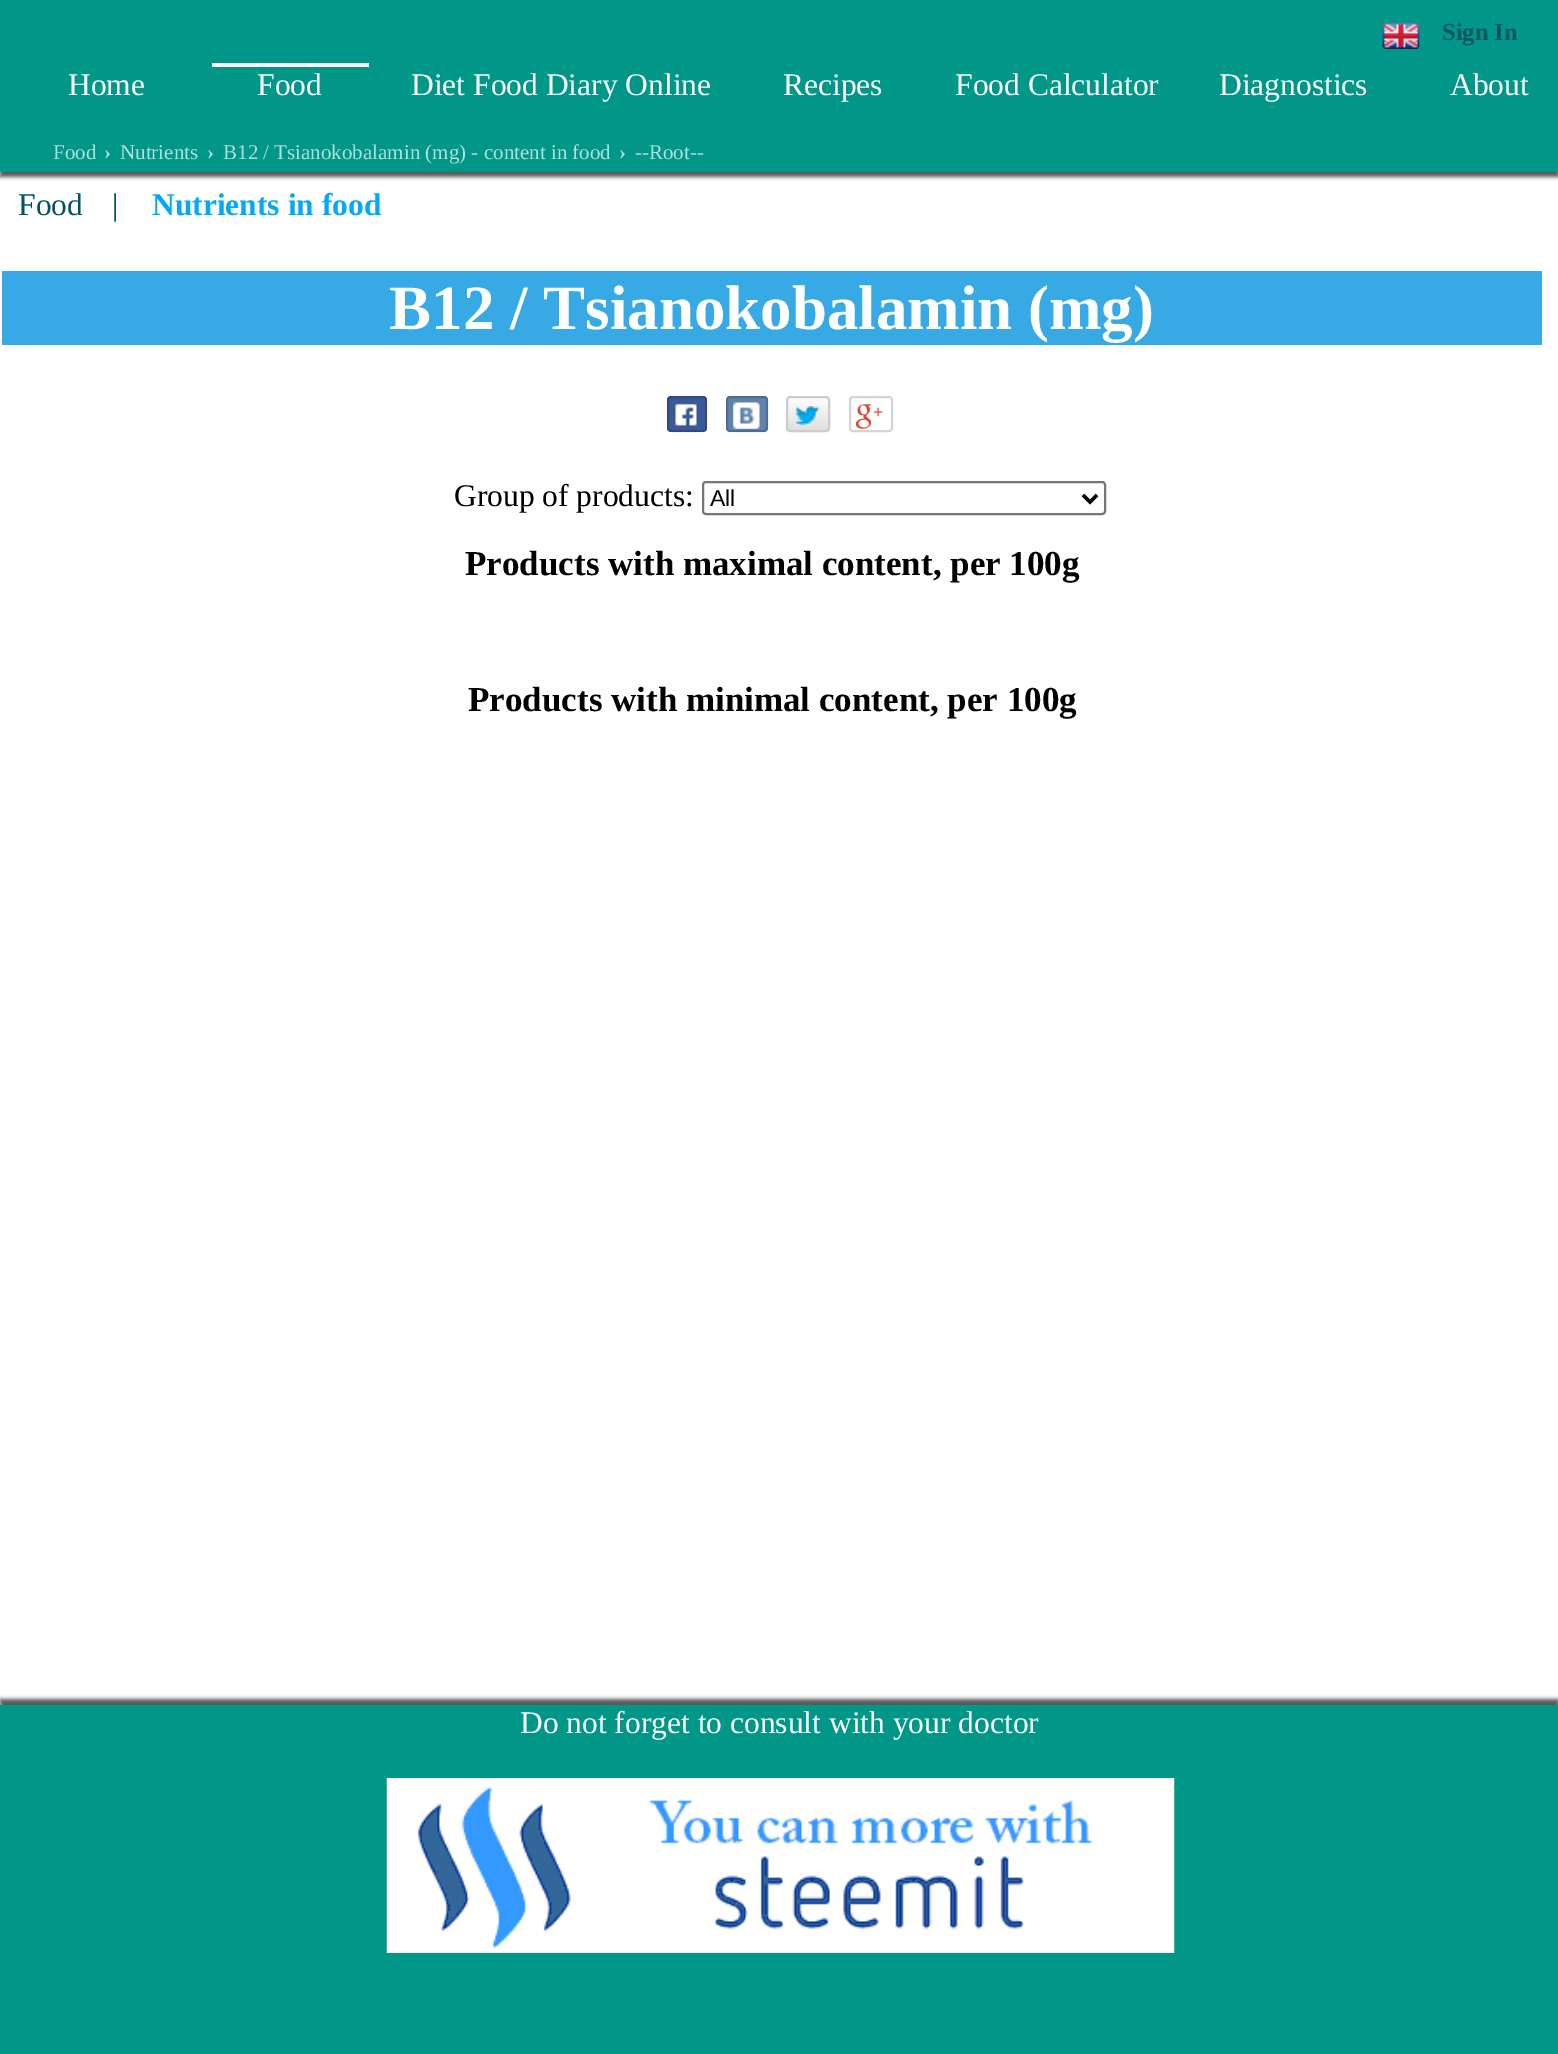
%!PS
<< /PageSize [1558 2054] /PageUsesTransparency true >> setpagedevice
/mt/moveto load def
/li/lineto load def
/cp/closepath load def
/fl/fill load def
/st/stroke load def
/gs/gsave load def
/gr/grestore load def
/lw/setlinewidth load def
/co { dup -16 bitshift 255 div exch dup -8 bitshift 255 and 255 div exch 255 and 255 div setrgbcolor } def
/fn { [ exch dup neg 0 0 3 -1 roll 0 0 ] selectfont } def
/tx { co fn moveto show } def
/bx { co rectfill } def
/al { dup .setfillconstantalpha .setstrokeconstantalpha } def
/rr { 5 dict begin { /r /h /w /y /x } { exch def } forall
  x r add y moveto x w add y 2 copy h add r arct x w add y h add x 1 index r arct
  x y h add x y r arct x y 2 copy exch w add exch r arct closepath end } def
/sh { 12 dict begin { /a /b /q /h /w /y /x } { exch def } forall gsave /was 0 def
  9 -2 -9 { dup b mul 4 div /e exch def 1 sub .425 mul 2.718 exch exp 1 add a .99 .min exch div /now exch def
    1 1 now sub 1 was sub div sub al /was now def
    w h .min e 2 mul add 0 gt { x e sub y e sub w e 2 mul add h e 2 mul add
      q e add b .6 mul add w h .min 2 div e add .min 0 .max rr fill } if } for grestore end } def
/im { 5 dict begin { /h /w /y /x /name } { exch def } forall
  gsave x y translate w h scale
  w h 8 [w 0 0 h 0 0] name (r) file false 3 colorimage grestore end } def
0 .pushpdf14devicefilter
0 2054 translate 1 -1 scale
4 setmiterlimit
0 0 1558 2054 16#FFFFFF bx
16#555555 co
0 5 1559 172 0 2 1 sh
0 0 1558 172 16#009688 bx
(media/1.raw) 1382 22 38 27 im
212 63 157 4 16#FFFFFF bx
2 271 1540 74 16#37A9E4 bx
16#3B5998 co
667 396 40 36 4 rr fl
0.17 al
16#000000 co
2 lw
668 397 38 34 3 rr st
1 al
(media/2.raw) 674 403 24 24 im
16#5F83AA co
726 396 42 36 4 rr fl
0.17 al
16#000000 co
727 397 40 34 3 rr st
1 al
(media/3.raw) 733 402 27 27 im
gs
786 396 44 36 4 rr clip newpath
gs 786 397 mt 830 397 li 830 431 li 786 431 li cp clip newpath
<< /ShadingType 2 /ColorSpace /DeviceRGB /Coords [808 397 808 431] /Extend [true true] /Function << /FunctionType 2 /Domain [0 1] /C0 [1 1 1] /C1 [.871 .871 .871] /N 1 >> >> shfill gr
gr
16#CCCCCC co
787 397 42 34 3 rr st
(media/4.raw) 794 406 26 21 im
16#D4D4D4 co
850 397 42 34 3 rr st
(media/5.raw) 856 404 16 25 im
16#767676 co
703 482 402 32 3 rr st
16#000000 co
3.5 lw
1083 495 mt 1090 502 li 1097 495 li st
16#555555 co
0 1699 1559 350 0 2 1 sh
0 1705 1558 349 16#009688 bx
(media/6.raw) 386 1778 789 175 im
(Sign In) 1442 40 /LiberationSerif-Bold 24.5 16#005464 tx
(Home) 68 95 /LiberationSerif-Regular 31.5 16#FFFFFF tx
(Food) 257 95 /LiberationSerif-Regular 31.5 16#FFFFFF tx
(Diet Food Diary Online) 411 95 /LiberationSerif-Regular 31.5 16#FFFFFF tx
(Recipes) 783 95 /LiberationSerif-Regular 31.5 16#FFFFFF tx
(Food Calculator) 955 95 /LiberationSerif-Regular 31.5 16#FFFFFF tx
(Diagnostics) 1219 95 /LiberationSerif-Regular 31.5 16#FFFFFF tx
(About) 1450 95 /LiberationSerif-Regular 31.5 16#FFFFFF tx
(Food) 53 159 /LiberationSerif-Regular 21 16#B2DFDB tx
(›) 104 159 /LiberationSerif-Bold 21 16#B2DFDB tx
(Nutrients) 120 159 /LiberationSerif-Regular 21 16#B2DFDB tx
(›) 207 159 /LiberationSerif-Bold 21 16#B2DFDB tx
(B12 / Tsianokobalamin \(mg\) - content in food) 223 159 /LiberationSerif-Regular 21 16#B2DFDB tx
(›) 619 159 /LiberationSerif-Bold 21 16#B2DFDB tx
(--Root--) 635 159 /LiberationSerif-Regular 21 16#B2DFDB tx
(Food) 18 215 /LiberationSerif-Regular 31.5 16#005464 tx
(|) 112 215 /LiberationSerif-Regular 31.5 16#005464 tx
(Nutrients in food) 152 215 /LiberationSerif-Bold 31.5 16#03A9F4 tx
(B12 / Tsianokobalamin \(mg\)) 389 329 /LiberationSerif-Bold 63 16#FFFFFF tx
(+) 873 418 /LiberationSerif-Bold 18 16#DD4B38 tx
(Group of products:) 454 506 /LiberationSerif-Regular 31.5 16#000000 tx
(All) 710 506 /LiberationSans-Regular 23 16#000000 tx
(Products with maximal content, per 100g) 465 575 /LiberationSerif-Bold 35 16#000000 tx
(Products with minimal content, per 100g) 468 711 /LiberationSerif-Bold 35 16#000000 tx
(Do not forget to consult with your doctor) 520 1733 /LiberationSerif-Regular 31.5 16#FFFFFF tx
.poppdf14devicefilter showpage
